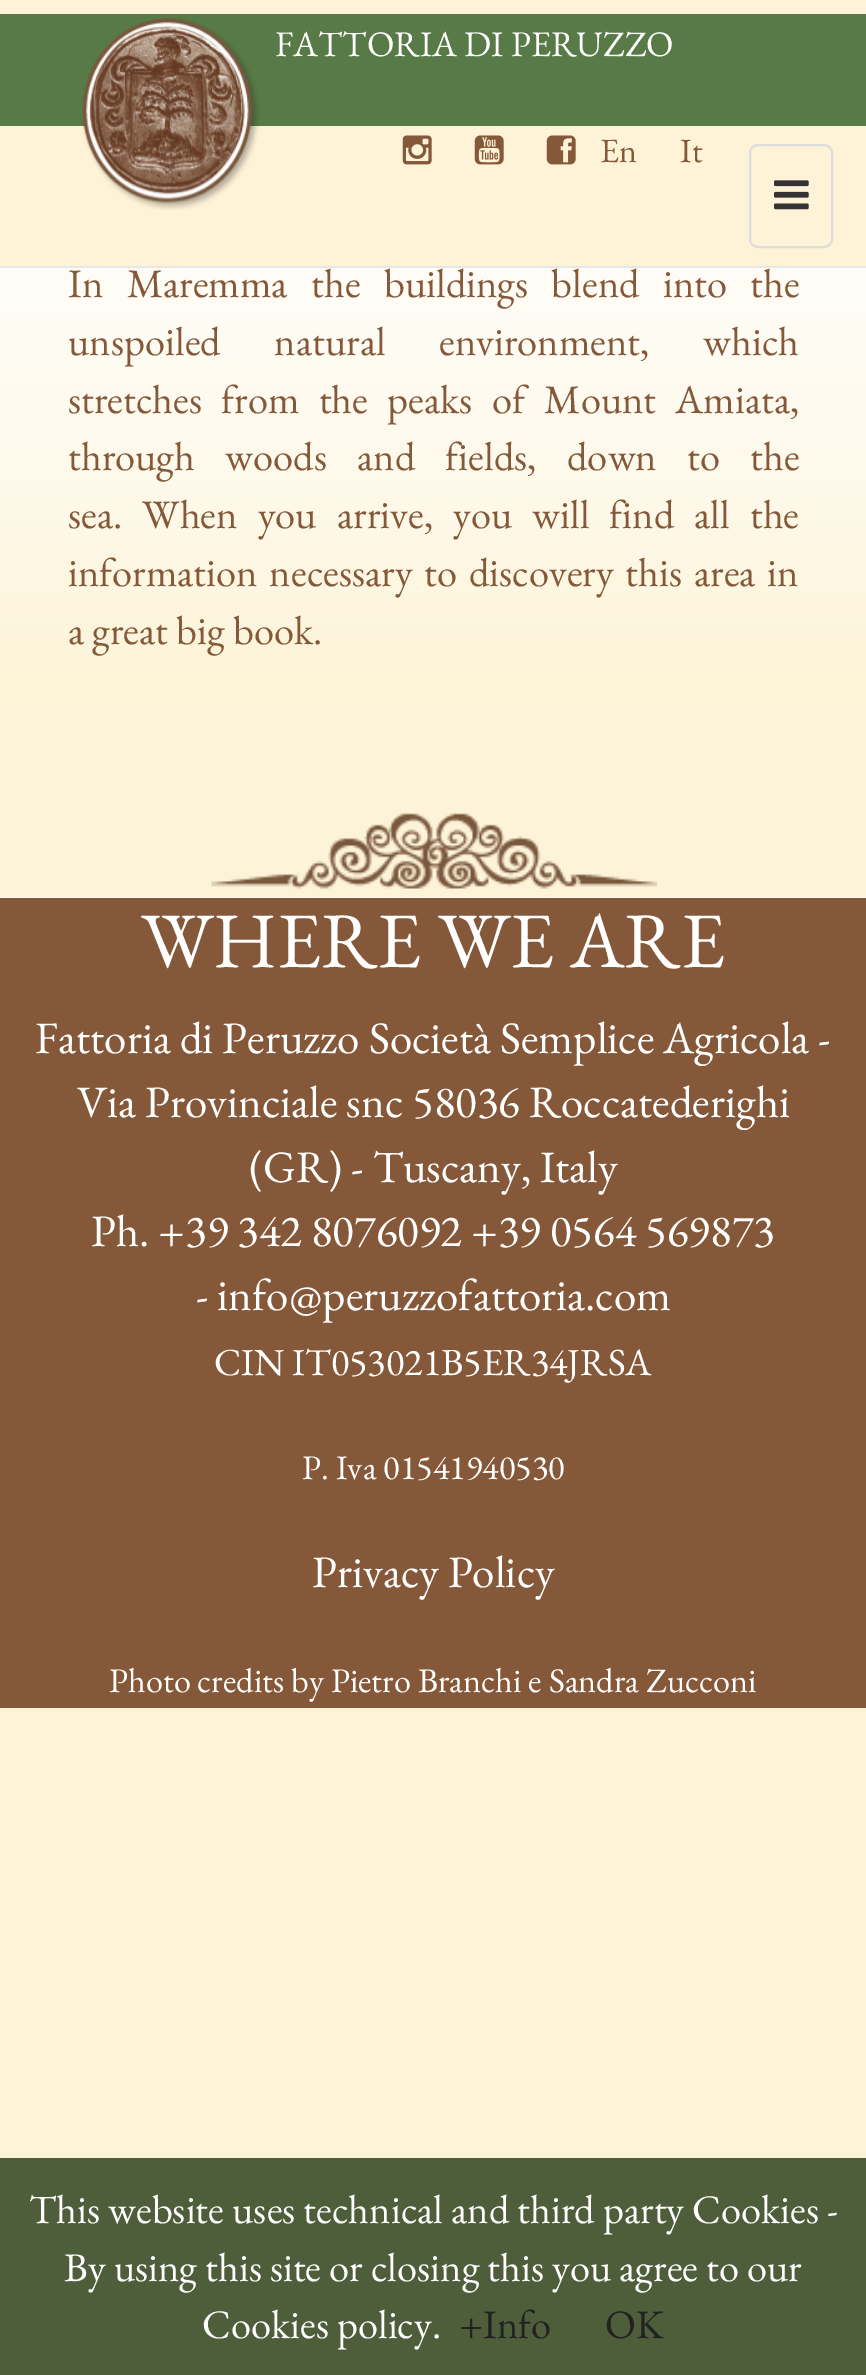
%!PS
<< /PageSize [866 2375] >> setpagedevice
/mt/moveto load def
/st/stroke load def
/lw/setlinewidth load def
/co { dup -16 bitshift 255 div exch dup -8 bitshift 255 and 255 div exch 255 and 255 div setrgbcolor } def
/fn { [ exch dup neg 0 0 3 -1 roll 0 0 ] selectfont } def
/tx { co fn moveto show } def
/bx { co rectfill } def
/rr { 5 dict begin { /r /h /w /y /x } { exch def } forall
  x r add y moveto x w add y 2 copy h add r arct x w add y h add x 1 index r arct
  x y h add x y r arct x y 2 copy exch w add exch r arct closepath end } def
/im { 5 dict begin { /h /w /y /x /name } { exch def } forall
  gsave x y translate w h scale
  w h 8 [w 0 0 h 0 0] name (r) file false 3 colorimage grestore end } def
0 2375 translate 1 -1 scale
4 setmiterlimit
0 0 866 2375 16#855839 bx
0 0 866 266 16#FFF3D7 bx
0 266 866 2 16#E7E7E7 bx
0 14 866 112 16#587A46 bx
(media/1.raw) 82 18 178 192 im
(media/2.raw) 402 135 30 30 im
(media/3.raw) 474 135 30 30 im
(media/4.raw) 546 135 30 30 im
16#DDDDDD co
2 lw
750 145 82 102 8 rr st
(media/5.raw) 774 180 35 30 im
0 897 866 1 16#FFFFFF bx
(media/6.raw) 0 268 866 630 im
0 1708 866 450 16#FFF3D7 bx
0 2158 866 217 16#4E5D3A bx
(FATTORIA DI PERUZZO) 275 56 /EBGaramond-Regular 36 16#FFFFFF tx
(En) 600 162 /EBGaramond-Regular 34 16#855839 tx
(It) 680 162 /EBGaramond-Regular 34 16#855839 tx
/EBGaramond-Regular 40.5 fn
68 297 mt 15.25 0 32 (In Maremma the buildings blend into the) widthshow
68 355 mt 45.5 0 32 (unspoiled natural environment, which) widthshow
68 413 mt 11.25 0 32 (stretches from the peaks of Mount Amiata,) widthshow
68 470 mt 22.25 0 32 (through woods and fields, down to the) widthshow
68 528 mt 12 0 32 (sea. When you arrive, you will find all the) widthshow
68 586 mt 3.75 0 32 (information necessary to discovery this area in) widthshow
(a great big book.) 68 644 /EBGaramond-Regular 40.5 16#855839 tx
(WHERE WE ARE) 141 967 /EBGaramond-Regular 78.75 16#FFFFFF tx
(Fattoria di Peruzzo Società Semplice Agricola -) 35 1053 /EBGaramond-Regular 45 16#FFFFFF tx
(Via Provinciale snc 58036 Roccatederighi) 77 1117 /EBGaramond-Regular 45 16#FFFFFF tx
(\(GR\) - Tuscany, Italy) 249 1182 /EBGaramond-Regular 45 16#FFFFFF tx
(Ph. +39 342 8076092 +39 0564 569873) 91 1246 /EBGaramond-Regular 45 16#FFFFFF tx
(- info@peruzzofattoria.com) 196 1310 /EBGaramond-Regular 45 16#FFFFFF tx
(CIN IT053021B5ER34JRSA) 214 1375 /EBGaramond-Regular 38.25 16#FFFFFF tx
(P. Iva 01541940530) 302 1479 /EBGaramond-Regular 34.4 16#FFFFFF tx
(Privacy Policy) 312 1587 /EBGaramond-Regular 45 16#FFFFFF tx
(Photo credits by Pietro Branchi e Sandra Zucconi) 109 1692 /EBGaramond-Regular 34.4 16#FFFFFF tx
(This website uses technical and third party Cookies -) 29 2223 /EBGaramond-Regular 40.5 16#FFFFFF tx
(By using this site or closing this you agree to our) 64 2281 /EBGaramond-Regular 40.5 16#FFFFFF tx
(Cookies policy.) 202 2338 /EBGaramond-Regular 40.5 16#FFFFFF tx
(+Info) 459 2338 /EBGaramond-Regular 40.5 16#222222 tx
(OK) 605 2338 /EBGaramond-Regular 40.5 16#222222 tx
showpage
